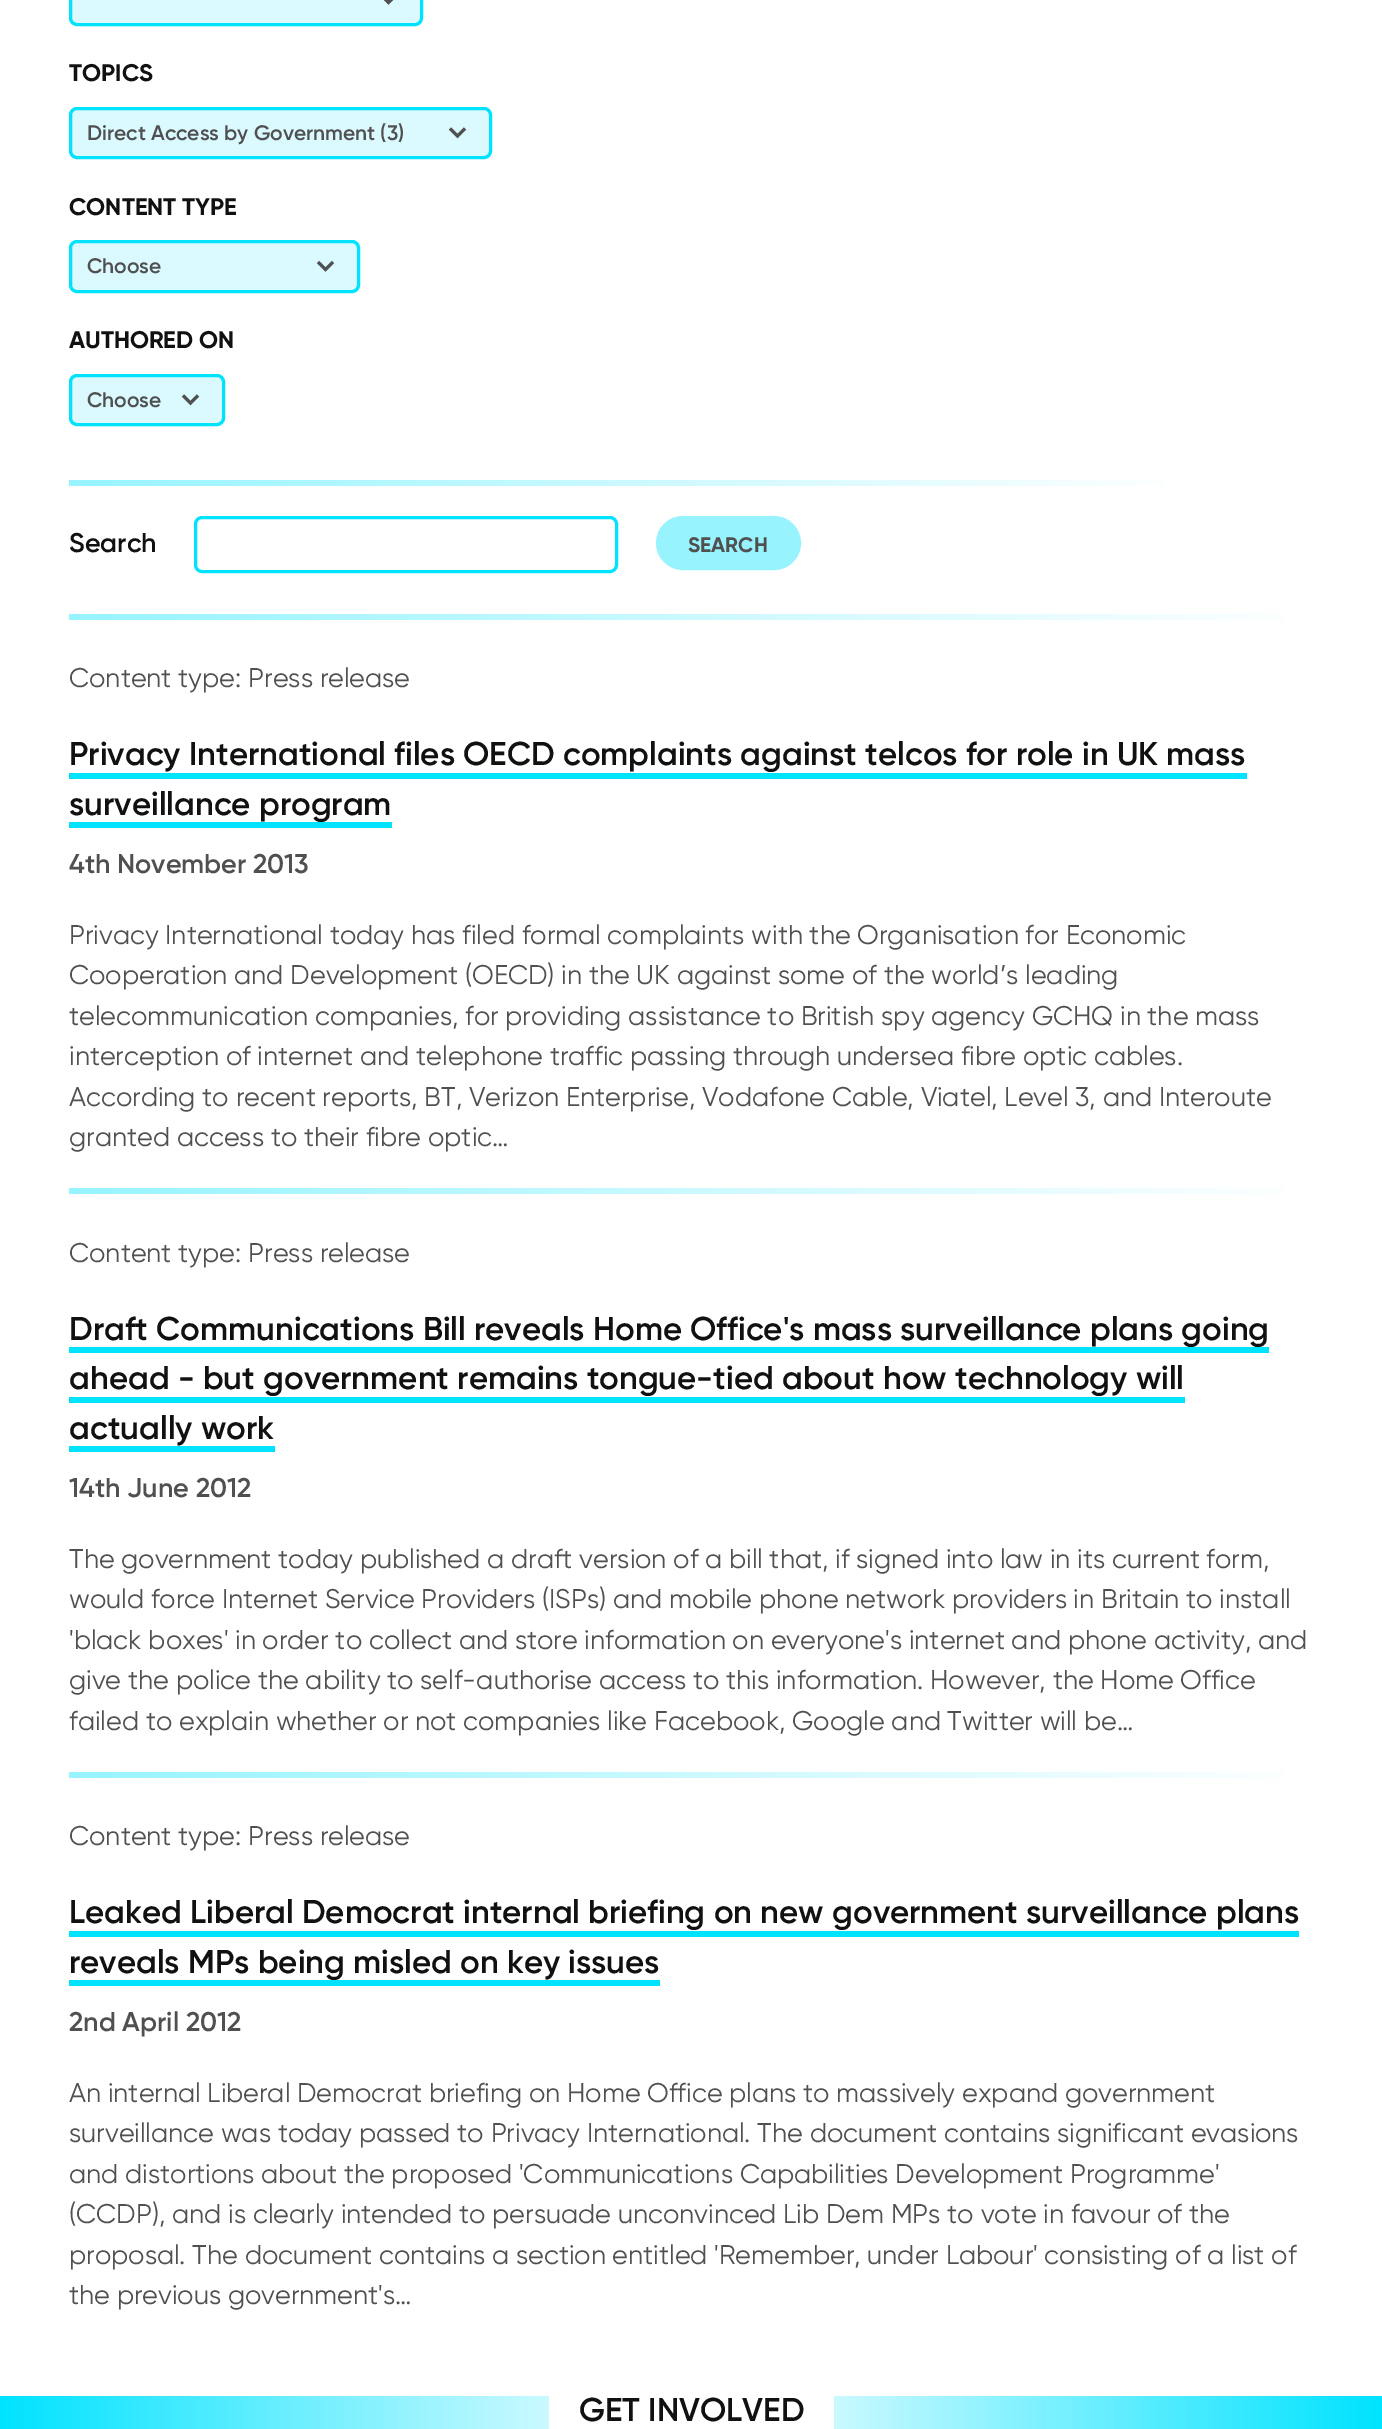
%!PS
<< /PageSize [1382 2429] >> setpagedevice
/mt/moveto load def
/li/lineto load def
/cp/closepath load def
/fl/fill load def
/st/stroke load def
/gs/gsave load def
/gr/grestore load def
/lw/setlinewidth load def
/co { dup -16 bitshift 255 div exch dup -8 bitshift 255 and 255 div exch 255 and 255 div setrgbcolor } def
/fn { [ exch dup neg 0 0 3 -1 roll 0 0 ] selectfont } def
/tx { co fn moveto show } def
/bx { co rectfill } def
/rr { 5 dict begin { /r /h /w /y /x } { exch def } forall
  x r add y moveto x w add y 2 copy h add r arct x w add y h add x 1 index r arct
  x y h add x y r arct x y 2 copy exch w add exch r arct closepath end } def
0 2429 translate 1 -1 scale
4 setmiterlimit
0 0 1382 2429 16#FFFFFF bx
gs 69 480 mt 1163 480 li 1163 486 li 69 486 li cp clip newpath
<< /ShadingType 2 /ColorSpace /DeviceRGB /Coords [69 483 1190 483] /Extend [true true] /Function << /FunctionType 2 /Domain [0 1] /C0 [.592 .957 1] /C1 [1 1 1] /N 1 >> >> shfill gr
16#DAFAFF co
69 -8 354 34 8 rr fl
16#505050 co
2.9 lw
387.5 3.5 mt 396 -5 li 389.5 3.5 mt 381 -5 li st
16#00E3FF co
3 lw
70.5 -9.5 351 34 6.5 rr st
16#DAFAFF co
69 107 423 52 8 rr fl
16#505050 co
2.9 lw
456.5 137 mt 465 128.5 li 458.5 137 mt 450 128.5 li st
16#00E3FF co
3 lw
70.5 108.5 420 49 6.5 rr st
16#DAFAFF co
69 240 291 53 8 rr fl
16#505050 co
2.9 lw
324.5 270.5 mt 333 262 li 326.5 270.5 mt 318 262 li st
16#00E3FF co
3 lw
70.5 241.5 288 50 6.5 rr st
16#DAFAFF co
69 374 156 52 8 rr fl
16#505050 co
2.9 lw
189.5 404 mt 198 395.5 li 191.5 404 mt 183 395.5 li st
16#00E3FF co
3 lw
70.5 375.5 153 49 6.5 rr st
195.5 517.5 421 54 6.5 rr st
16#97F4FF co
657.5 517.5 142 51 25.5 rr gs fl gr
st
gs 69 614 mt 1284 614 li 1284 620 li 69 620 li cp clip newpath
<< /ShadingType 2 /ColorSpace /DeviceRGB /Coords [69 617 1314 617] /Extend [true true] /Function << /FunctionType 2 /Domain [0 1] /C0 [.592 .957 1] /C1 [1 1 1] /N 1 >> >> shfill gr
69 773 1178 6 16#00E3FF bx
69 822 323 6 16#00E3FF bx
gs 69 1188 mt 1284 1188 li 1284 1194 li 69 1194 li cp clip newpath
<< /ShadingType 2 /ColorSpace /DeviceRGB /Coords [69 1191 1314 1191] /Extend [true true] /Function << /FunctionType 2 /Domain [0 1] /C0 [.592 .957 1] /C1 [1 1 1] /N 1 >> >> shfill gr
69 1347 1200 6 16#00E3FF bx
69 1397 1116 6 16#00E3FF bx
69 1446 206 6 16#00E3FF bx
gs 69 1772 mt 1284 1772 li 1284 1778 li 69 1778 li cp clip newpath
<< /ShadingType 2 /ColorSpace /DeviceRGB /Coords [69 1775 1314 1775] /Extend [true true] /Function << /FunctionType 2 /Domain [0 1] /C0 [.592 .957 1] /C1 [1 1 1] /N 1 >> >> shfill gr
69 1931 1230 6 16#00E3FF bx
69 1980 591 6 16#00E3FF bx
gs 0 2396 mt 1382 2396 li 1382 2429 li 0 2429 li cp clip newpath
<< /ShadingType 2 /ColorSpace /DeviceRGB /Coords [0 2412 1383 2412] /Extend [true true] /Function << /FunctionType 3 /Domain [0 1] /Functions [<< /FunctionType 2 /Domain [0 1] /C0 [0 .89 1] /C1 [1 1 1] /N 1 >> << /FunctionType 2 /Domain [0 1] /C0 [1 1 1] /C1 [0 .89 1] /N 1 >>] /Bounds [.5] /Encode [0 1 0 1] >> >> shfill gr
549 2396 285 33 16#FFFFFF bx
(TOPICS) 69 81 /Gilroy-Bold 24 16#111111 tx
(Direct Access by Government \(3\)) 87 140 /Gilroy-SemiBold 21 16#505050 tx
(CONTENT TYPE) 69 215 /Gilroy-Bold 24 16#111111 tx
(Choose) 87 273 /Gilroy-SemiBold 21 16#505050 tx
(AUTHORED ON) 69 348 /Gilroy-Bold 24 16#111111 tx
(Choose) 87 407 /Gilroy-SemiBold 21 16#505050 tx
(Search) 69 552 /Gilroy-SemiBold 27 16#111111 tx
(SEARCH) 688 552 /Gilroy-Bold 21 16#505050 tx
(Content type: Press release) 69 687 /gilroy-Regular 27 16#505050 tx
(Privacy International files OECD complaints against telcos for role in UK mass) 69 765 /Gilroy-SemiBold 33 16#111111 tx
(surveillance program) 69 815 /Gilroy-SemiBold 33 16#111111 tx
(4th November 2013) 69 873 /Gilroy-SemiBold 27 16#505050 tx
(Privacy International today has filed formal complaints with the Organisation for Economic) 69 944 /gilroy-Regular 27 16#505050 tx
(Cooperation and Development \(OECD\) in the UK against some of the world’s leading) 69 984 /gilroy-Regular 27 16#505050 tx
(telecommunication companies, for providing assistance to British spy agency GCHQ in the mass) 69 1025 /gilroy-Regular 27 16#505050 tx
(interception of internet and telephone traffic passing through undersea fibre optic cables.) 69 1065 /gilroy-Regular 27 16#505050 tx
(According to recent reports, BT, Verizon Enterprise, Vodafone Cable, Viatel, Level 3, and Interoute) 69 1106 /gilroy-Regular 27 16#505050 tx
(granted access to their fibre optic…) 69 1146 /gilroy-Regular 27 16#505050 tx
(Content type: Press release) 69 1262 /gilroy-Regular 27 16#505050 tx
(Draft Communications Bill reveals Home Office's mass surveillance plans going) 69 1340 /Gilroy-SemiBold 33 16#111111 tx
(ahead - but government remains tongue-tied about how technology will) 69 1389 /Gilroy-SemiBold 33 16#111111 tx
(actually work) 69 1439 /Gilroy-SemiBold 33 16#111111 tx
(14th June 2012) 69 1497 /Gilroy-SemiBold 27 16#505050 tx
(The government today published a draft version of a bill that, if signed into law in its current form,) 69 1568 /gilroy-Regular 27 16#505050 tx
(would force Internet Service Providers \(ISPs\) and mobile phone network providers in Britain to install) 69 1608 /gilroy-Regular 27 16#505050 tx
('black boxes' in order to collect and store information on everyone's internet and phone activity, and) 69 1649 /gilroy-Regular 27 16#505050 tx
(give the police the ability to self-authorise access to this information. However, the Home Office) 69 1689 /gilroy-Regular 27 16#505050 tx
(failed to explain whether or not companies like Facebook, Google and Twitter will be…) 69 1730 /gilroy-Regular 27 16#505050 tx
(Content type: Press release) 69 1845 /gilroy-Regular 27 16#505050 tx
(Leaked Liberal Democrat internal briefing on new government surveillance plans) 69 1923 /Gilroy-SemiBold 33 16#111111 tx
(reveals MPs being misled on key issues) 69 1973 /Gilroy-SemiBold 33 16#111111 tx
(2nd April 2012) 69 2031 /Gilroy-SemiBold 27 16#505050 tx
(An internal Liberal Democrat briefing on Home Office plans to massively expand government) 69 2102 /gilroy-Regular 27 16#505050 tx
(surveillance was today passed to Privacy International. The document contains significant evasions) 69 2142 /gilroy-Regular 27 16#505050 tx
(and distortions about the proposed 'Communications Capabilities Development Programme') 69 2183 /gilroy-Regular 27 16#505050 tx
(\(CCDP\), and is clearly intended to persuade unconvinced Lib Dem MPs to vote in favour of the) 69 2223 /gilroy-Regular 27 16#505050 tx
(proposal. The document contains a section entitled 'Remember, under Labour' consisting of a list of) 69 2264 /gilroy-Regular 27 16#505050 tx
(the previous government's…) 69 2304 /gilroy-Regular 27 16#505050 tx
(GET INVOLVED) 579 2421 /Gilroy-SemiBold 33 16#111111 tx
showpage
